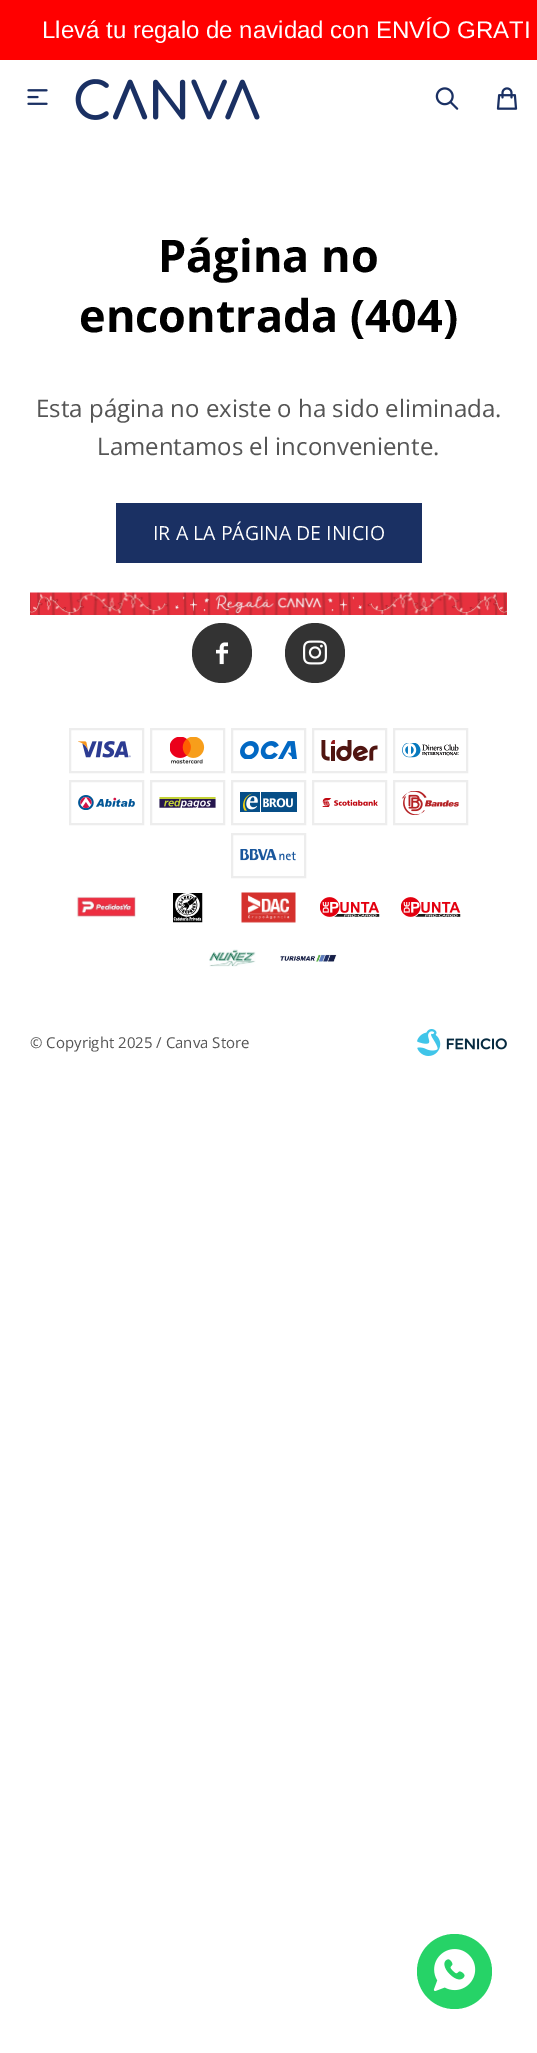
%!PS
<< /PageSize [537 2053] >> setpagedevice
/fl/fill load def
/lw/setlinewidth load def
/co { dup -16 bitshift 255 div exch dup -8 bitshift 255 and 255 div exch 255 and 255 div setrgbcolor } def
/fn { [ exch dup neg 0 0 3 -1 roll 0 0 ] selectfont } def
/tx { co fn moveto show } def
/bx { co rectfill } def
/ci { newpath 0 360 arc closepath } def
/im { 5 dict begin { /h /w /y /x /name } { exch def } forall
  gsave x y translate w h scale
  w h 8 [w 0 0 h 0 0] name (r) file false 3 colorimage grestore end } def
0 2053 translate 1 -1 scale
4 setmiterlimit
0 0 537 2053 16#FFFFFF bx
0 0 537 60 16#FF0000 bx
(media/1.raw) 27 89 21 16 im
(media/2.raw) 75 79 185 41 im
(media/3.raw) 435 87 24 23 im
(media/4.raw) 496 87 22 23 im
116 503 306 60 16#1A3063 bx
(media/5.raw) 30 592 477 23 im
16#333333 co
222 653 30 ci fl
(media/6.raw) 216 642 12 23 im
315 653 30 ci fl
(media/7.raw) 303 640 24 25 im
16#EDEDED co
2 lw
70 729 73 43 rectstroke
(media/8.raw) 78 741 53 17 im
151 729 73 43 rectstroke
(media/9.raw) 170 737 35 27 im
232 729 73 43 rectstroke
(media/10.raw) 240 741 57 18 im
313 729 73 43 rectstroke
(media/11.raw) 321 740 57 21 im
394 729 73 43 rectstroke
(media/12.raw) 402 743 57 15 im
70 781 73 43 rectstroke
(media/13.raw) 78 795 57 15 im
151 781 73 43 rectstroke
(media/14.raw) 159 797 57 11 im
232 781 73 43 rectstroke
(media/15.raw) 240 792 57 20 im
313 781 73 43 rectstroke
(media/16.raw) 322 798 56 9 im
394 781 73 43 rectstroke
(media/17.raw) 402 791 57 24 im
232 834 73 43 rectstroke
(media/18.raw) 240 849 56 12 im
(media/19.raw) 76 896 60 22 im
(media/20.raw) 173 893 30 30 im
(media/21.raw) 241 892 55 31 im
(media/22.raw) 320 897 60 20 im
(media/22.raw) 401 897 60 20 im
(media/23.raw) 209 949 47 18 im
(media/24.raw) 280 954 57 8 im
(media/25.raw) 417 1029 90 27 im
16#26D367 co
454.5 1971.5 37.5 ci fl
(media/26.raw) 433 1949 43 42 im
(Llevá tu regalo de navidad con ENVÍO GRATI) 42 38 /LiberationSans-Regular 24 16#FFFFFF tx
(Página no) 158 272 /OpenSans-Bold 45 16#000000 tx
(encontrada \(404\)) 79 332 /OpenSans-Bold 45 16#000000 tx
(Esta página no existe o ha sido eliminada.) 36 417 /OpenSans-Regular 24 16#555555 tx
(Lamentamos el inconveniente.) 97 455 /OpenSans-Regular 24 16#555555 tx
(IR A LA PÁGINA DE INICIO) 153 540 /OpenSans-Regular 19.5 16#FFFFFF tx
(© Copyright 2025 / Canva Store) 30 1048 /OpenSans-Regular 15 16#555555 tx
showpage
